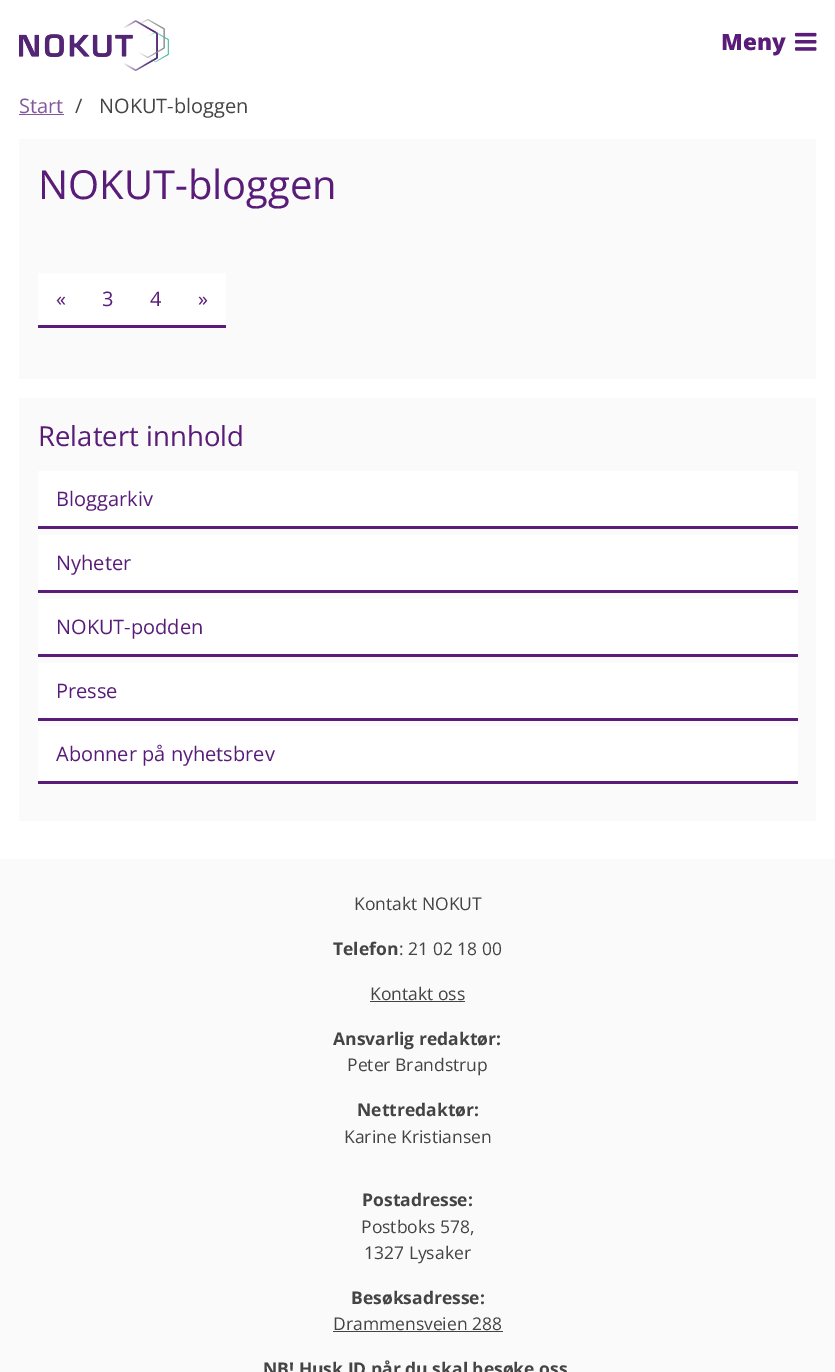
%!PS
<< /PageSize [835 1372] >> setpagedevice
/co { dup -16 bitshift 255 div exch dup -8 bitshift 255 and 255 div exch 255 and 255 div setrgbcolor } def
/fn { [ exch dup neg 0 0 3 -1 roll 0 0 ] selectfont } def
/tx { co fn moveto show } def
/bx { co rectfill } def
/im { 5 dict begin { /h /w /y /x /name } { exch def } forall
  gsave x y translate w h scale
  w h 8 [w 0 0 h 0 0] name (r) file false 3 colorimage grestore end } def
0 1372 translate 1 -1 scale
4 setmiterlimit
0 0 835 1372 16#FAFAFA bx
0 0 835 859 16#FFFFFF bx
(media/1.raw) 19 19 150 52 im
(media/2.raw) 795 32 22 19 im
19 114 45 1 16#84579C bx
19 139 797 682 16#FAFAFA bx
38 273 188 52 16#FFFFFF bx
38 325 188 3 16#5A1C79 bx
19 379 797 19 16#FFFFFF bx
38 471 760 55 16#FFFFFF bx
38 526 760 3 16#5A1C79 bx
38 535 760 55 16#FFFFFF bx
38 590 760 3 16#5A1C79 bx
38 599 760 55 16#FFFFFF bx
38 654 760 3 16#5A1C79 bx
38 663 760 55 16#FFFFFF bx
38 718 760 3 16#5A1C79 bx
38 726 760 55 16#FFFFFF bx
38 781 760 3 16#5A1C79 bx
370 1001 95 1 16#444444 bx
333 1331 170 1 16#444444 bx
(Meny) 721 50 /OpenSans-ExtraBold 22.5 16#5A1C79 tx
(Start) 19 113 /OpenSans-Regular 20 16#84579C tx
(/) 75 113 /OpenSans-Regular 20 16#444444 tx
(NOKUT-bloggen) 99 113 /OpenSans-Regular 20 16#444444 tx
(NOKUT-bloggen) 38 199 /OpenSans-Regular 40 16#5A1C79 tx
(«) 56 306 /OpenSans-Regular 20 16#5A1C79 tx
(3) 102 306 /OpenSans-Regular 20 16#5A1C79 tx
(4) 150 306 /OpenSans-Regular 20 16#5A1C79 tx
(») 198 306 /OpenSans-Regular 20 16#5A1C79 tx
(Relatert innhold) 38 446 /OpenSans-Regular 27.5 16#5A1C79 tx
(Bloggarkiv) 56 506 /OpenSans-Regular 20 16#5A1C79 tx
(Nyheter) 56 570 /OpenSans-Regular 20 16#5A1C79 tx
(NOKUT-podden) 56 634 /OpenSans-Regular 20 16#5A1C79 tx
(Presse) 56 698 /OpenSans-Regular 20 16#5A1C79 tx
(Abonner på nyhetsbrev) 56 761 /OpenSans-Regular 20 16#5A1C79 tx
(Kontakt NOKUT) 354 910 /OpenSans-Regular 17.5 16#444444 tx
(Telefon) 333 955 /OpenSans-Bold 17.5 16#444444 tx
(: 21 02 18 00) 399 955 /OpenSans-Regular 17.5 16#444444 tx
(Kontakt oss) 370 1000 /OpenSans-Regular 17.5 16#444444 tx
(Ansvarlig redaktør:) 333 1045 /OpenSans-Bold 17.5 16#444444 tx
(Peter Brandstrup) 347 1071 /OpenSans-Regular 17.5 16#444444 tx
(Nettredaktør:) 357 1116 /OpenSans-Bold 17.5 16#444444 tx
(Karine Kristiansen) 344 1143 /OpenSans-Regular 17.5 16#444444 tx
(Postadresse:) 362 1206 /OpenSans-Bold 17.5 16#444444 tx
(Postboks 578,) 361 1233 /OpenSans-Regular 17.5 16#444444 tx
(1327 Lysaker) 364 1259 /OpenSans-Regular 17.5 16#444444 tx
(Besøksadresse:) 351 1304 /OpenSans-Bold 17.5 16#444444 tx
(Drammensveien 288) 333 1330 /OpenSans-Regular 17.5 16#444444 tx
(NB! Husk ID når du skal besøke oss) 263 1375 /OpenSans-Bold 17.5 16#444444 tx
showpage
